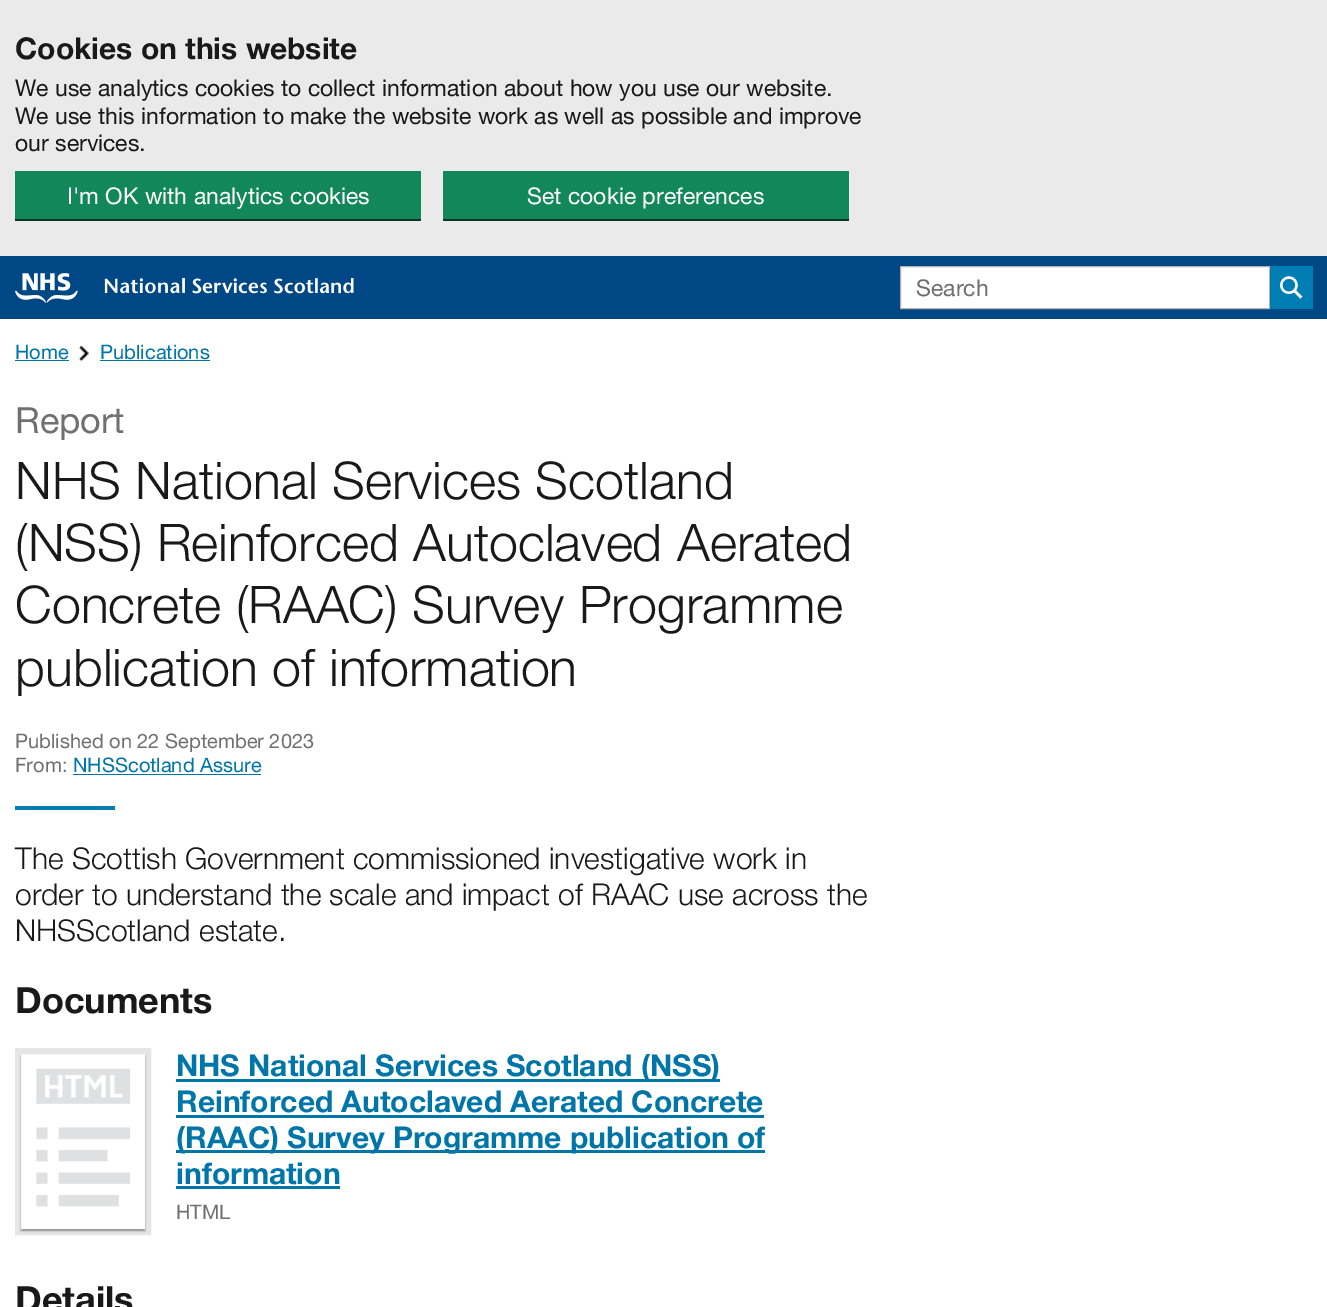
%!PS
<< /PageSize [1327 1307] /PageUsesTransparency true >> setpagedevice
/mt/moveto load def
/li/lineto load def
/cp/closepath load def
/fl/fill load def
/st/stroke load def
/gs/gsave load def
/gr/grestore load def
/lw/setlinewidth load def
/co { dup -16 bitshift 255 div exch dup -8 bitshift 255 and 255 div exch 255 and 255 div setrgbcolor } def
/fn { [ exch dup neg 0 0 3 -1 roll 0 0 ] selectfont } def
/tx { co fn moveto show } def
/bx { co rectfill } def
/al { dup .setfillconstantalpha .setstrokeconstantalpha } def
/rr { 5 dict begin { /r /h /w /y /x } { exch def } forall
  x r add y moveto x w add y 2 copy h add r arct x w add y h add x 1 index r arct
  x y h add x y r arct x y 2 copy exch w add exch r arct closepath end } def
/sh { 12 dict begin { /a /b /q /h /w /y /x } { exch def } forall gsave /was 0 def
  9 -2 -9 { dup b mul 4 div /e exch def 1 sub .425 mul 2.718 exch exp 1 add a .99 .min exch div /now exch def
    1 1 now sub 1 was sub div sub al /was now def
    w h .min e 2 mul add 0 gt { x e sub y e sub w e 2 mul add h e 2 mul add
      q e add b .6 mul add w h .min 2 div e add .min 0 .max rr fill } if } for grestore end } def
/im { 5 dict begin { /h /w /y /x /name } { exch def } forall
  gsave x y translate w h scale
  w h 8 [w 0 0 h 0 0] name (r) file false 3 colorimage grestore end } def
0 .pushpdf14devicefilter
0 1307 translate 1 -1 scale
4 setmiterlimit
0 0 1327 1307 16#FFFFFF bx
0 0 1327 256 16#EAEAEA bx
15 219 406 2 16#073624 bx
15 171 406 48 16#12875A bx
16#073624 co
443 219 mt 443 221 li 849 221 li 849 174 li 849 219 li cp fl
443 171 406 48 16#12875A bx
0 256 1327 63 16#004785 bx
(media/1.raw) 15 273 339 30 im
16#FFFFFF co
900.5 266.5 mt 1269.5 266.5 li 1269.5 308.5 li 900.5 308.5 li cp gs fl gr
16#B2B2B2 co
st
1270 266 43 43 16#007DB3 bx
(media/2.raw) 1280 276 23 23 im
15 360 54 1 16#0076A8 bx
(media/3.raw) 78 345 11 17 im
100 360 110 1 16#0076A8 bx
73 774 188 1 16#0076A8 bx
15 806 100 4 16#007DB3 bx
16#0B0C0C co
21 1056 124 175 0 1 .4 sh
21 1054 124 175 16#FFFFFF bx
(media/4.raw) 36 1068 95 139 im
0.1 al
16#0B0C0C co
6 lw
18 1051 130 181 rectstroke
1 al
176 1079 544 3 16#0076A8 bx
176 1115 588 3 16#0076A8 bx
176 1150 589 3 16#0076A8 bx
176 1186 164 3 16#0076A8 bx
(Cookies on this website) 15 59 /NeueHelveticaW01-Bold 30 16#191919 tx
(We use analytics cookies to collect information about how you use our website.) 15 96 /NeueHelveticaW01-Regular 23 16#191919 tx
(We use this information to make the website work as well as possible and improve) 15 124 /NeueHelveticaW01-Regular 23 16#191919 tx
(our services.) 15 151 /NeueHelveticaW01-Regular 23 16#191919 tx
(I'm OK with analytics cookies) 67 204 /NeueHelveticaW01-Regular 23 16#FFFFFF tx
(Set cookie preferences) 527 204 /NeueHelveticaW01-Regular 23 16#FFFFFF tx
(Search) 916 296 /NeueHelveticaW01-Regular 23 16#707070 tx
(Home) 15 359 /NeueHelveticaW01-Regular 20 16#0076A8 tx
(Publications) 100 359 /NeueHelveticaW01-Regular 20 16#0076A8 tx
(Report) 15 433 /NeueHelveticaW01-Regular 36 16#707070 tx
(NHS National Services Scotland) 15 499 /NeueHelveticaW01-Light 52 16#191919 tx
(\(NSS\) Reinforced Autoclaved Aerated) 15 561 /NeueHelveticaW01-Light 52 16#191919 tx
(Concrete \(RAAC\) Survey Programme) 15 623 /NeueHelveticaW01-Light 52 16#191919 tx
(publication of information) 15 686 /NeueHelveticaW01-Light 52 16#191919 tx
(Published on 22 September 2023) 15 748 /NeueHelveticaW01-Regular 20 16#707070 tx
(From:) 15 772 /NeueHelveticaW01-Regular 20 16#707070 tx
(NHSScotland Assure) 73 772 /NeueHelveticaW01-Regular 20 16#0076A8 tx
(The Scottish Government commissioned investigative work in) 15 869 /NeueHelveticaW01-Light 30 16#191919 tx
(order to understand the scale and impact of RAAC use across the) 15 905 /NeueHelveticaW01-Light 30 16#191919 tx
(NHSScotland estate.) 15 941 /NeueHelveticaW01-Light 30 16#191919 tx
(Documents) 15 1013 /NeueHelveticaW01-Bold 36 16#191919 tx
(NHS National Services Scotland \(NSS\)) 176 1076 /NeueHelveticaW01-Bold 30 16#0076A8 tx
(Reinforced Autoclaved Aerated Concrete) 176 1112 /NeueHelveticaW01-Bold 30 16#0076A8 tx
(\(RAAC\) Survey Programme publication of) 176 1148 /NeueHelveticaW01-Bold 30 16#0076A8 tx
(information) 176 1184 /NeueHelveticaW01-Bold 30 16#0076A8 tx
(HTML) 176 1219 /NeueHelveticaW01-Regular 20 16#707070 tx
(Details) 15 1312 /NeueHelveticaW01-Bold 36 16#191919 tx
.poppdf14devicefilter showpage
